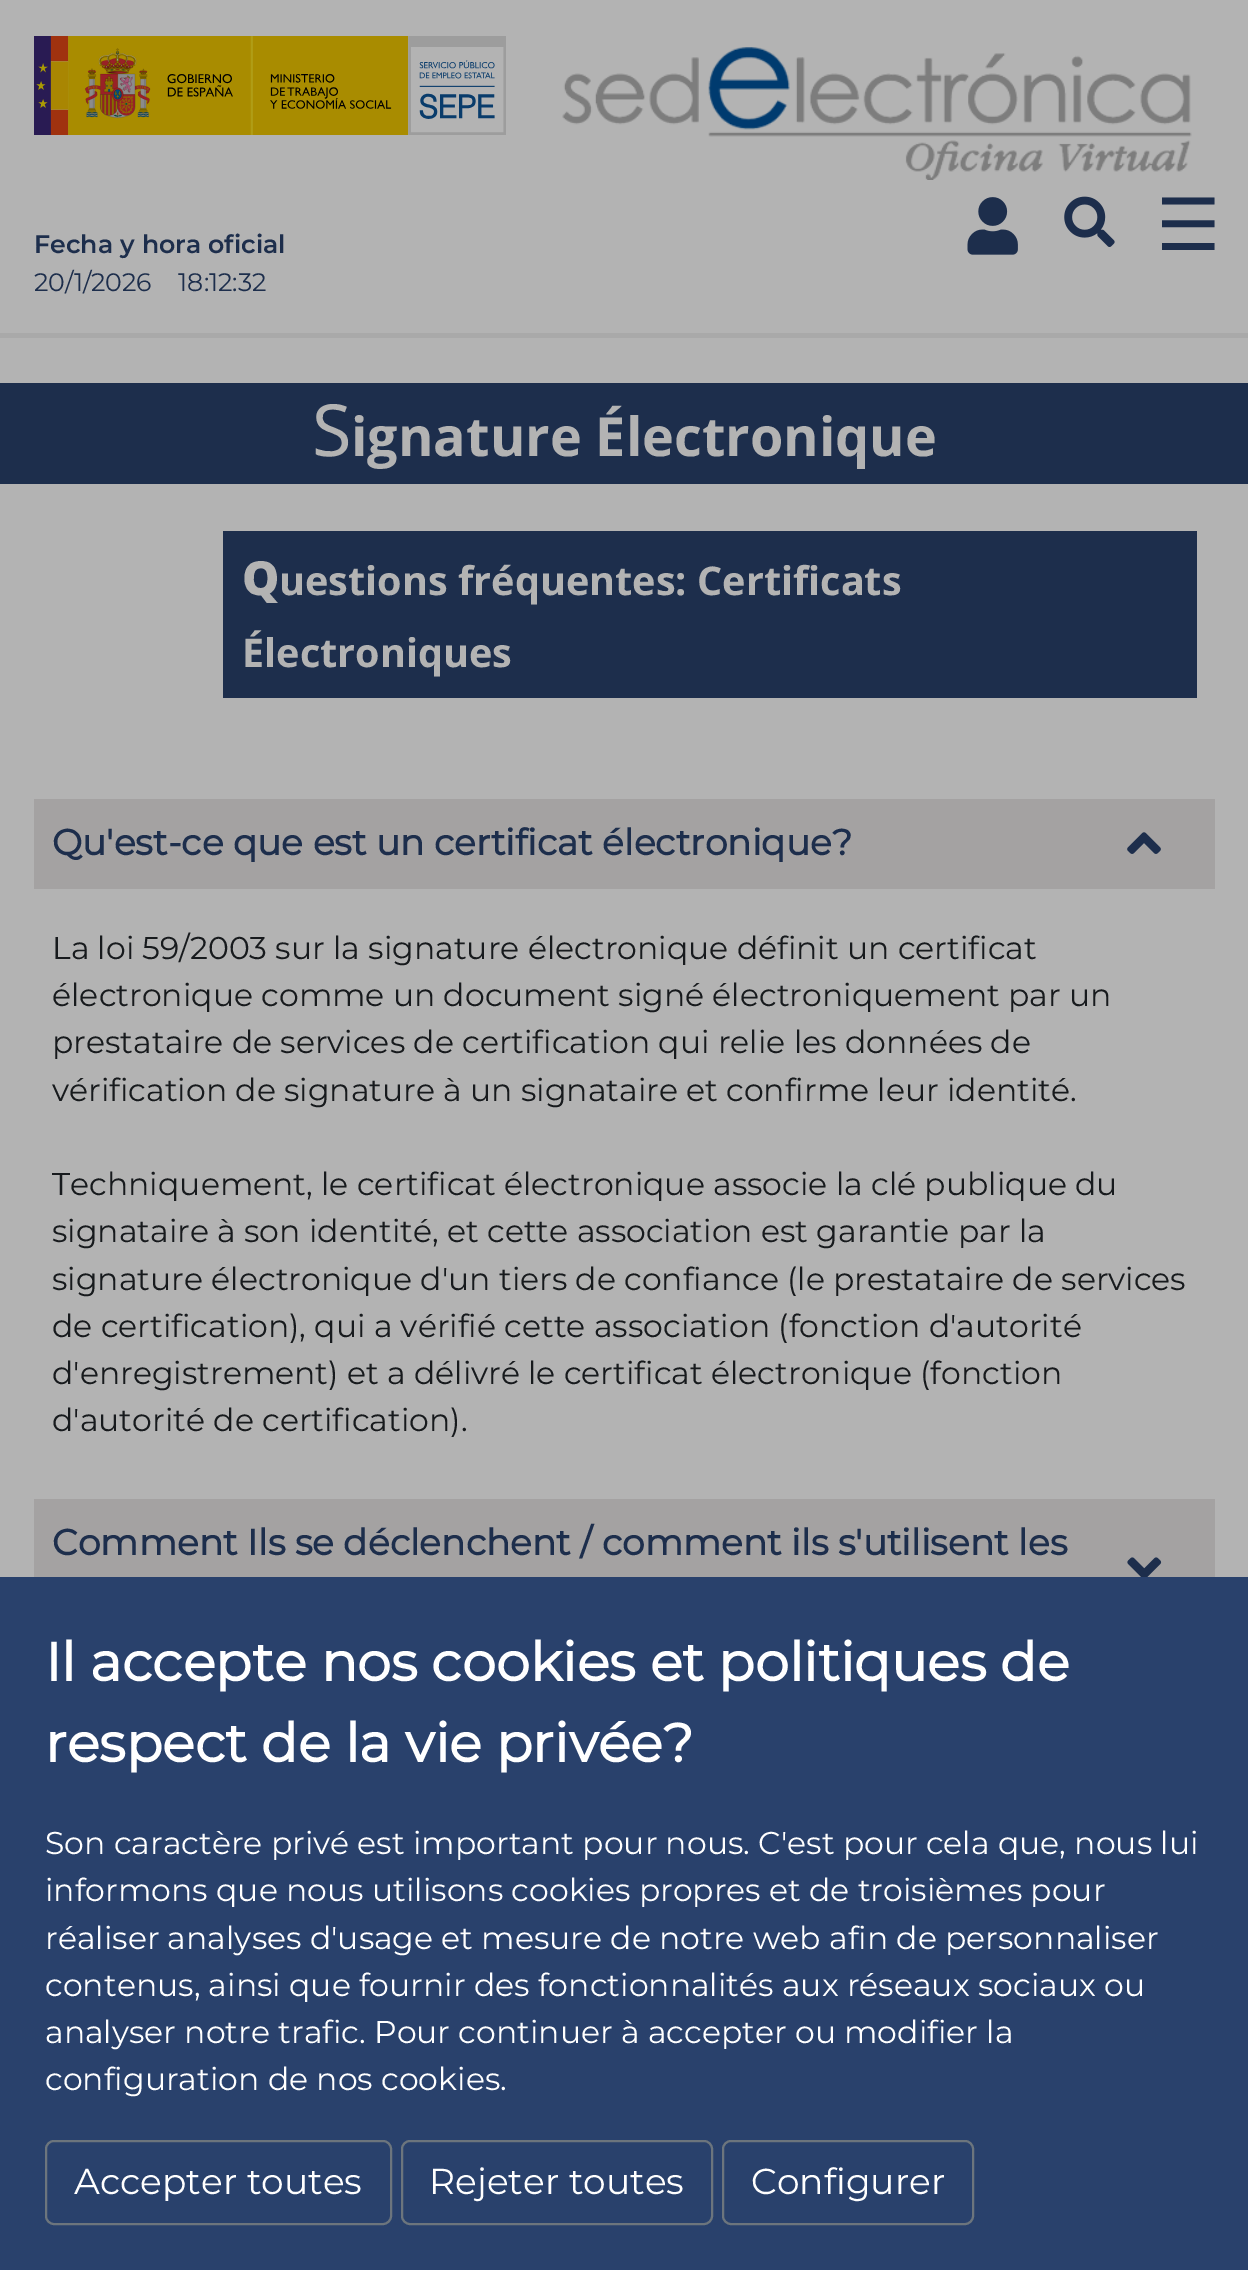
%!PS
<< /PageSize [1248 2270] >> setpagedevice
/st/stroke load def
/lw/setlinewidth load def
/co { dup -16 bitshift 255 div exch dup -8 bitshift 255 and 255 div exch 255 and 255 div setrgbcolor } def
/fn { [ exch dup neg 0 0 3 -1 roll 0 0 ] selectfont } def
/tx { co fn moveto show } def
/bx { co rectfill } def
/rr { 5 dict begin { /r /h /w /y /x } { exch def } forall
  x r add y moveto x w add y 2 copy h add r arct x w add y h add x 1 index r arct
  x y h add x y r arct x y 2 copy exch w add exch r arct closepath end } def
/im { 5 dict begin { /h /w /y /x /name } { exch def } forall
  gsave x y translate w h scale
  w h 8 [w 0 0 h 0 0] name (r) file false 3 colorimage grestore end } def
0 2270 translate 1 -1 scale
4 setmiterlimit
0 0 1248 2270 16#B3B3B3 bx
0 333 1248 5 16#A9A9A9 bx
(media/1.raw) 34 36 472 99 im
(media/2.raw) 562 47 630 133 im
(media/3.raw) 967 197 51 58 im
(media/4.raw) 1064 196 51 51 im
0 383 1248 101 16#1D2E4C bx
223 531 974 167 16#1D2E4C bx
34 799 1181 90 16#A4A2A2 bx
(media/5.raw) 1127 832 34 22 im
34 1499 1181 78 16#A4A2A2 bx
(media/6.raw) 1127 1557 35 20 im
0 1577 1248 693 16#29416C bx
16#6C757D co
2 lw
46 2141 345 83 8 rr st
402 2141 310 83 8 rr st
723 2141 250 83 8 rr st
(☰) 1156 250 /DejaVuSans-Regular 72 16#1D2E4C tx
(Fecha y hora oficial) 34 253 /Montserrat-SemiBold 25.25 16#1D2E4C tx
(20/1/2026    18:12:32) 34 291 /Montserrat-Regular 25.25 16#1D2E4C tx
(S) 312 456 /NotoSans-Regular 72 16#B3B3B3 tx
(ignature Électronique) 351 456 /OpenSans-Bold 54 16#B3B3B3 tx
(Q) 242 595 /NotoSans-Black 47 16#B3B3B3 tx
(uestions fréquentes: Certificats) 279 595 /OpenSans-Bold 39.6 16#B3B3B3 tx
(Électroniques) 242 667 /OpenSans-Bold 39.6 16#B3B3B3 tx
(Qu'est-ce que est un certificat électronique?) 52 855 /Montserrat-Bold 36 16#1D2E4C tx
(La loi 59/2003 sur la signature électronique définit un certificat) 52 959 /Montserrat-Regular 31.5 16#171A1D tx
(électronique comme un document signé électroniquement par un) 52 1006 /Montserrat-Regular 31.5 16#171A1D tx
(prestataire de services de certification qui relie les données de) 52 1053 /Montserrat-Regular 31.5 16#171A1D tx
(vérification de signature à un signataire et confirme leur identité.) 52 1101 /Montserrat-Regular 31.5 16#171A1D tx
(Techniquement, le certificat électronique associe la clé publique du) 52 1195 /Montserrat-Regular 31.5 16#171A1D tx
(signataire à son identité, et cette association est garantie par la) 52 1242 /Montserrat-Regular 31.5 16#171A1D tx
(signature électronique d'un tiers de confiance \(le prestataire de services) 52 1290 /Montserrat-Regular 31.5 16#171A1D tx
(de certification\), qui a vérifié cette association \(fonction d'autorité) 52 1337 /Montserrat-Regular 31.5 16#171A1D tx
(d'enregistrement\) et a délivré le certificat électronique \(fonction) 52 1384 /Montserrat-Regular 31.5 16#171A1D tx
(d'autorité de certification\).) 52 1431 /Montserrat-Regular 31.5 16#171A1D tx
(Comment Ils se déclenchent / comment ils s'utilisent les) 52 1555 /Montserrat-Bold 36 16#1D2E4C tx
(Il accepte nos cookies et politiques de) 45 1681 /Montserrat-Bold 54 16#FFFFFF tx
(respect de la vie privée?) 45 1762 /Montserrat-Bold 54 16#FFFFFF tx
(Son caractère privé est important pour nous. C'est pour cela que, nous lui) 45 1854 /Montserrat-Regular 31.5 16#FFFFFF tx
(informons que nous utilisons cookies propres et de troisièmes pour) 45 1901 /Montserrat-Regular 31.5 16#FFFFFF tx
(réaliser analyses d'usage et mesure de notre web afin de personnaliser) 45 1949 /Montserrat-Regular 31.5 16#FFFFFF tx
(contenus, ainsi que fournir des fonctionnalités aux réseaux sociaux ou) 45 1996 /Montserrat-Regular 31.5 16#FFFFFF tx
(analyser notre trafic. Pour continuer à accepter ou modifier la) 45 2043 /Montserrat-Regular 31.5 16#FFFFFF tx
(configuration de nos cookies.) 45 2090 /Montserrat-Regular 31.5 16#FFFFFF tx
(Accepter toutes) 74 2194 /Montserrat-Regular 36 16#FFFFFF tx
(Rejeter toutes) 429 2194 /Montserrat-Regular 36 16#FFFFFF tx
(Configurer) 751 2194 /Montserrat-Regular 36 16#FFFFFF tx
showpage
